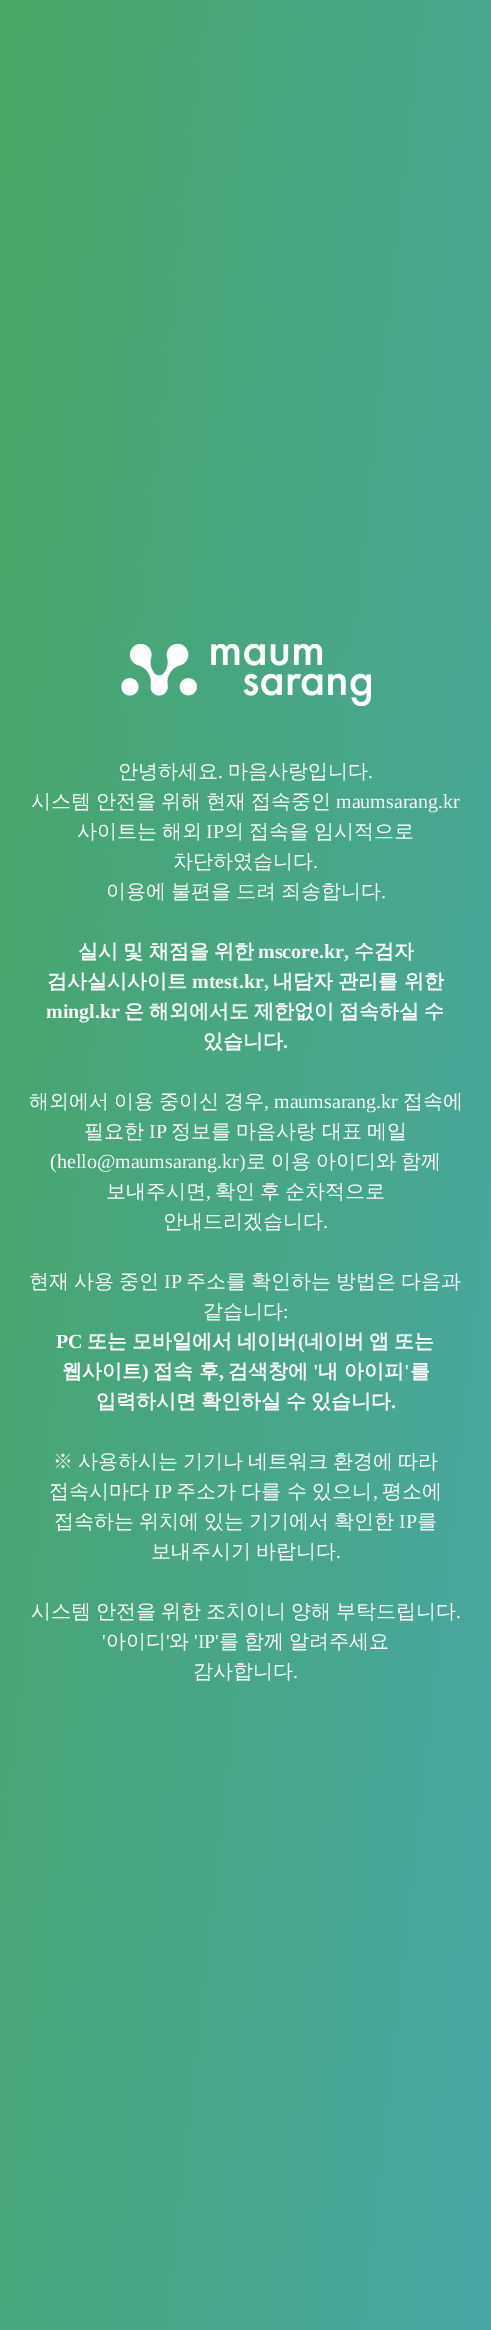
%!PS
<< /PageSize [491 2330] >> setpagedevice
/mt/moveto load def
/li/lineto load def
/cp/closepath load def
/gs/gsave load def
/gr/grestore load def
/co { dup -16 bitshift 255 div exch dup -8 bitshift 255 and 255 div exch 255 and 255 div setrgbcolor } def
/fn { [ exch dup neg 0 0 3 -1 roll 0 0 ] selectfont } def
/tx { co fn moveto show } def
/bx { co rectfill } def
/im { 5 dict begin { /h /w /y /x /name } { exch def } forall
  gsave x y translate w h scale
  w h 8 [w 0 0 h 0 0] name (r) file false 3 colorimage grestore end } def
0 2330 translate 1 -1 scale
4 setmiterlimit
0 0 491 2330 16#FFFFFF bx
gs 0 0 mt 491 0 li 491 2330 li 0 2330 li cp clip newpath
<< /ShadingType 2 /ColorSpace /DeviceRGB /Coords [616 1206 -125 1124] /Extend [true true] /Function << /FunctionType 2 /Domain [0 1] /C0 [.282 .651 .647] /C1 [.282 .651 .4] /N 1 >> >> shfill gr
(media/1.raw) 121 644 250 62 im
(안녕하세요) 118 778 /WenQuanYiZenHei-Medium 20 16#FFFFFF tx
(.) 218 778 /LiberationSerif-Regular 20 16#FFFFFF tx
(마음사랑입니다) 228 778 /WenQuanYiZenHei-Medium 20 16#FFFFFF tx
(.) 368 778 /LiberationSerif-Regular 20 16#FFFFFF tx
/WenQuanYiZenHei-Medium 20 fn
31 808 mt -1 0 32 (시스템 안전을 위해) widthshow
206 808 mt -.5 0 32 (현재 접속중인) widthshow
(maumsarang.kr) 336 808 /LiberationSerif-Regular 20 16#FFFFFF tx
/WenQuanYiZenHei-Medium 20 fn
77 838 mt -1 0 32 (사이트는 해외) widthshow
(IP) 206 838 /LiberationSerif-Regular 20 16#FFFFFF tx
/WenQuanYiZenHei-Medium 20 fn
224 838 mt -1 0 32 (의 접속을 임시적으로) widthshow
(차단하였습니다) 173 868 /WenQuanYiZenHei-Medium 20 16#FFFFFF tx
(.) 313 868 /LiberationSerif-Regular 20 16#FFFFFF tx
/WenQuanYiZenHei-Medium 20 fn
106 898 mt -1 0 32 (이용에 불편을 드려 죄송합니다) widthshow
(.) 381 898 /LiberationSerif-Regular 20 16#FFFFFF tx
/WenQuanYiZenHei-Bold 20 fn
78 958 mt -.5 0 32 (실시 및 채점을 위한) widthshow
(mscore.kr,) 258 958 /LiberationSerif-Bold 20 16#FFFFFF tx
(수검자) 354 958 /WenQuanYiZenHei-Bold 20 16#FFFFFF tx
(검사실시사이트) 47 988 /WenQuanYiZenHei-Bold 20 16#FFFFFF tx
(mtest.kr,) 192 988 /LiberationSerif-Bold 20 16#FFFFFF tx
/WenQuanYiZenHei-Bold 20 fn
273 988 mt -.5 0 32 (내담자 관리를 위한) widthshow
(mingl.kr) 46 1018 /LiberationSerif-Bold 20 16#FFFFFF tx
/WenQuanYiZenHei-Bold 20 fn
124 1018 mt -1 0 32 (은 해외에서도 제한없이 접속하실 수) widthshow
(있습니다) 203 1048 /WenQuanYiZenHei-Bold 20 16#FFFFFF tx
(.) 283 1048 /LiberationSerif-Bold 20 16#FFFFFF tx
(해외에서) 29 1108 /WenQuanYiZenHei-Medium 20 16#FFFFFF tx
(이용) 114 1108 /WenQuanYiZenHei-Medium 20 16#FFFFFF tx
(중이신) 159 1108 /WenQuanYiZenHei-Medium 20 16#FFFFFF tx
(경우) 224 1108 /WenQuanYiZenHei-Medium 20 16#FFFFFF tx
(, maumsarang.kr) 264 1108 /LiberationSerif-Regular 20 16#FFFFFF tx
(접속에) 403 1108 /WenQuanYiZenHei-Medium 20 16#FFFFFF tx
(필요한) 84 1138 /WenQuanYiZenHei-Medium 20 16#FFFFFF tx
(IP) 149 1138 /LiberationSerif-Regular 20 16#FFFFFF tx
/WenQuanYiZenHei-Medium 20 fn
171 1138 mt -.5 0 32 (정보를 마음사랑 대표 메일) widthshow
(\(hello@maumsarang.kr\)) 50 1168 /LiberationSerif-Regular 20 16#FFFFFF tx
/WenQuanYiZenHei-Medium 20 fn
246 1168 mt -1 0 32 (로 이용 아이디와 함께) widthshow
(보내주시면) 106 1198 /WenQuanYiZenHei-Medium 20 16#FFFFFF tx
(,) 206 1198 /LiberationSerif-Regular 20 16#FFFFFF tx
/WenQuanYiZenHei-Medium 20 fn
215 1198 mt -1 0 32 (확인 후 순차적으로) widthshow
(안내드리겠습니다) 163 1228 /WenQuanYiZenHei-Medium 20 16#FFFFFF tx
(.) 323 1228 /LiberationSerif-Regular 20 16#FFFFFF tx
/WenQuanYiZenHei-Medium 20 fn
29 1288 mt -1 0 32 (현재 사용 중인) widthshow
(IP) 164 1288 /LiberationSerif-Regular 20 16#FFFFFF tx
/WenQuanYiZenHei-Medium 20 fn
186 1288 mt -1 0 32 (주소를 확인하는 방법은 다음과) widthshow
(같습니다) 203 1318 /WenQuanYiZenHei-Medium 20 16#FFFFFF tx
(:) 283 1318 /LiberationSerif-Regular 20 16#FFFFFF tx
(PC) 56 1348 /LiberationSerif-Bold 20 16#FFFFFF tx
/WenQuanYiZenHei-Bold 20 fn
87 1348 mt -1 0 32 (또는 모바일에서 네이버) widthshow
(\() 298 1348 /LiberationSerif-Bold 20 16#FFFFFF tx
/WenQuanYiZenHei-Bold 20 fn
304 1348 mt -1 0 32 (네이버 앱 또는) widthshow
(웹사이트) 62 1378 /WenQuanYiZenHei-Bold 20 16#FFFFFF tx
(\)) 142 1378 /LiberationSerif-Bold 20 16#FFFFFF tx
(접속 후) 153 1378 /WenQuanYiZenHei-Bold 20 16#FFFFFF tx
(검색창에) 228 1378 /WenQuanYiZenHei-Bold 20 16#FFFFFF tx
(') 313 1378 /LiberationSerif-Bold 20 16#FFFFFF tx
(내 아이피) 318 1378 /WenQuanYiZenHei-Bold 20 16#FFFFFF tx
(') 404 1378 /LiberationSerif-Bold 20 16#FFFFFF tx
(를) 410 1378 /WenQuanYiZenHei-Bold 20 16#FFFFFF tx
(,) 219 1378 /LiberationSerif-Bold 20 16#FFFFFF tx
/WenQuanYiZenHei-Bold 20 fn
96 1408 mt -1 0 32 (입력하시면 확인하실 수 있습니다) widthshow
(.) 391 1408 /LiberationSerif-Bold 20 16#FFFFFF tx
/WenQuanYiZenHei-Medium 20 fn
53 1468 mt -1 0 32 (※ 사용하시는 기기나 네트워크 환경에 따라) widthshow
(접속시마다) 49 1498 /WenQuanYiZenHei-Medium 20 16#FFFFFF tx
(IP) 154 1498 /LiberationSerif-Regular 20 16#FFFFFF tx
/WenQuanYiZenHei-Medium 20 fn
176 1498 mt -.5 0 32 (주소가 다를 수 있으니) widthshow
(,) 373 1498 /LiberationSerif-Regular 20 16#FFFFFF tx
(평소에) 382 1498 /WenQuanYiZenHei-Medium 20 16#FFFFFF tx
54 1528 mt -1 0 32 (접속하는 위치에 있는 기기에서 확인한) widthshow
(IP) 399 1528 /LiberationSerif-Regular 20 16#FFFFFF tx
(를) 417 1528 /WenQuanYiZenHei-Medium 20 16#FFFFFF tx
151 1558 mt -1 0 32 (보내주시기 바랍니다) widthshow
(.) 336 1558 /LiberationSerif-Regular 20 16#FFFFFF tx
/WenQuanYiZenHei-Medium 20 fn
31 1618 mt -1 0 32 (시스템 안전을 위한 조치이니 양해 부탁드립니다) widthshow
(.) 456 1618 /LiberationSerif-Regular 20 16#FFFFFF tx
(') 102 1648 /LiberationSerif-Regular 20 16#FFFFFF tx
(아이디) 106 1648 /WenQuanYiZenHei-Medium 20 16#FFFFFF tx
(') 166 1648 /LiberationSerif-Regular 20 16#FFFFFF tx
(와) 169 1648 /WenQuanYiZenHei-Medium 20 16#FFFFFF tx
('IP') 194 1648 /LiberationSerif-Regular 20 16#FFFFFF tx
/WenQuanYiZenHei-Medium 20 fn
219 1648 mt -1 0 32 (를 함께 알려주세요) widthshow
(감사합니다) 193 1678 /WenQuanYiZenHei-Medium 20 16#FFFFFF tx
(.) 293 1678 /LiberationSerif-Regular 20 16#FFFFFF tx
showpage
